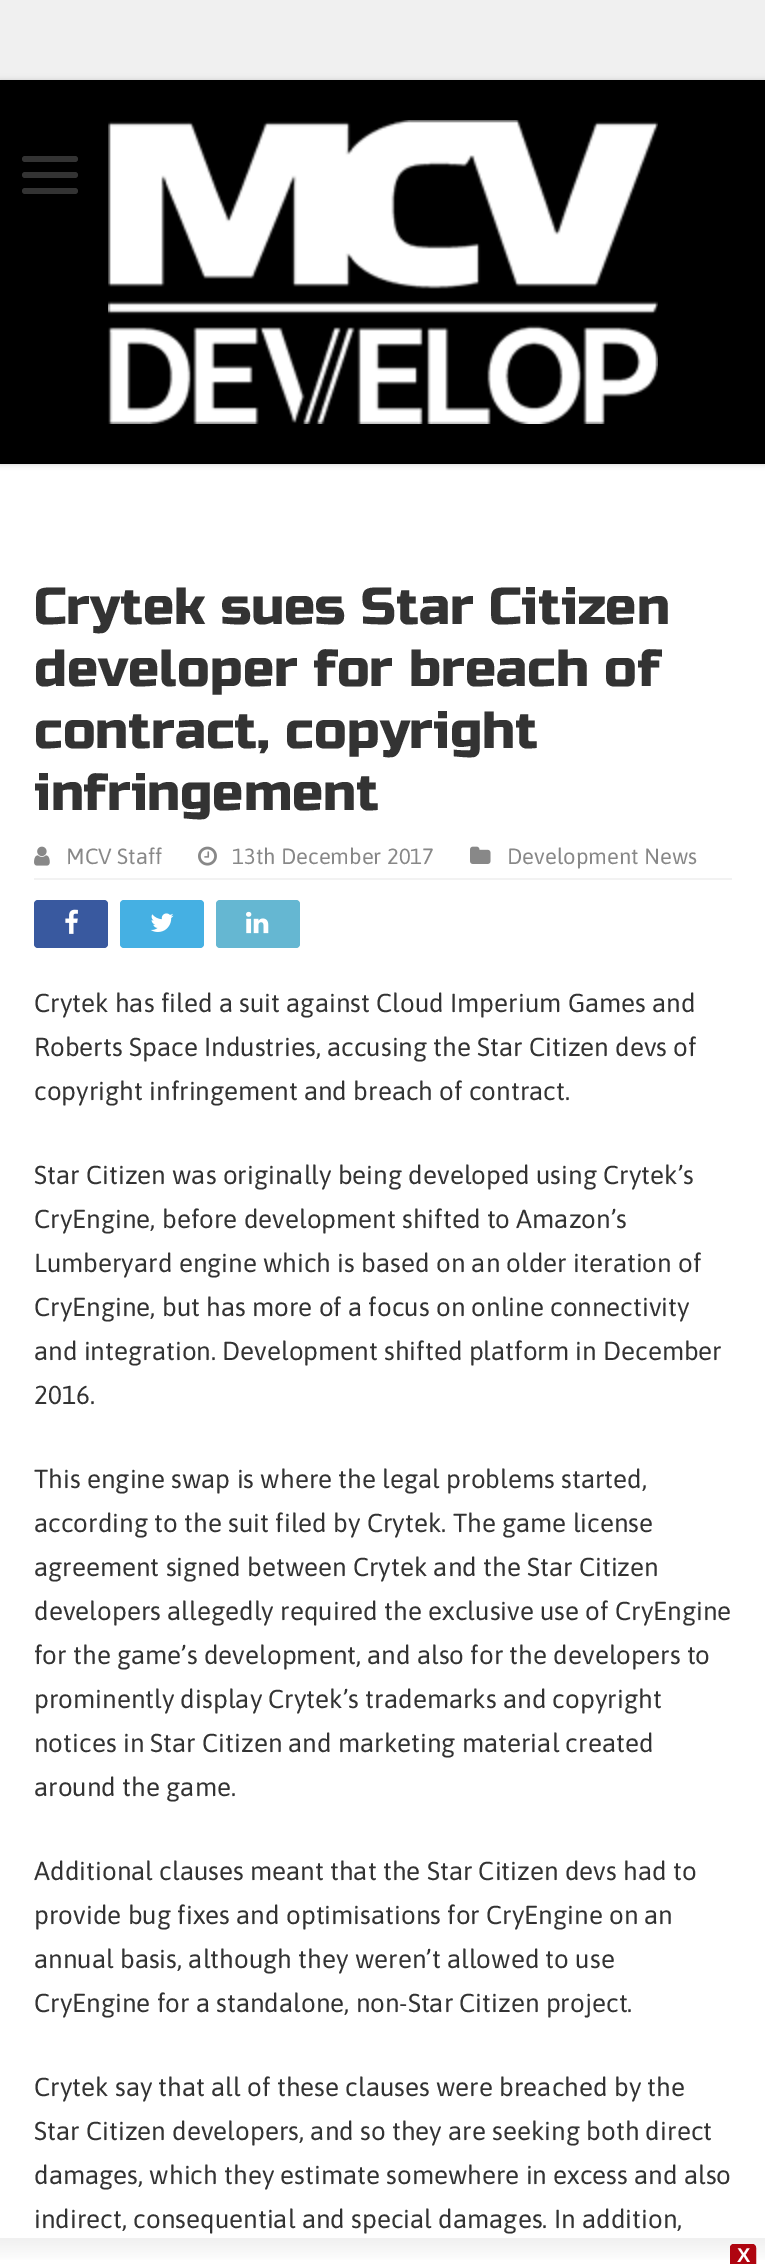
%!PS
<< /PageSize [765 2264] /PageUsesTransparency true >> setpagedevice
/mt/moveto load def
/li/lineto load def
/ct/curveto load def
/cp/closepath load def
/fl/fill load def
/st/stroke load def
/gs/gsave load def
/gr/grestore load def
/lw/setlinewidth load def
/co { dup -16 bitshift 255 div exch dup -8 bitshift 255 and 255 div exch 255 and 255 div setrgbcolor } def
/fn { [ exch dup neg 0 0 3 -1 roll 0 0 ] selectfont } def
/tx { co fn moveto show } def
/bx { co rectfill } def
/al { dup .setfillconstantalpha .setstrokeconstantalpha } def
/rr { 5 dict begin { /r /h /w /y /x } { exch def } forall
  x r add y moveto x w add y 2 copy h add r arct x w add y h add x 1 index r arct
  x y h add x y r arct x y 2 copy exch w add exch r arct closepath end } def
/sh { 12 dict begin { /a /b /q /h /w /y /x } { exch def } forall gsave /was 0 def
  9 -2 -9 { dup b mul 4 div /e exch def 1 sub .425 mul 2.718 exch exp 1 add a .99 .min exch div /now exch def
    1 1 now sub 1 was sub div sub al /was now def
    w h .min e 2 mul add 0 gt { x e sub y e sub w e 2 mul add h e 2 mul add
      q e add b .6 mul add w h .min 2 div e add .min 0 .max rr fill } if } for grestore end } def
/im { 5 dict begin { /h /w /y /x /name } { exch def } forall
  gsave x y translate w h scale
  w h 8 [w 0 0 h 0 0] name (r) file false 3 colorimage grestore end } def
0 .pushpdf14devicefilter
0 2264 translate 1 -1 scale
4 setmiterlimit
0 0 765 2264 16#FFFFFF bx
0 0 765 80 16#F0F0F0 bx
16#CACACA co
0 80 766 384 0 3 1 sh
0 80 765 384 16#000000 bx
16#333333 co
22 156 56 6 3 rr fl
22 172 56 6 3 rr fl
22 188 56 6 3 rr fl
(media/1.raw) 108 120 550 304 im
34 878 698 2 16#F2F2F2 bx
(media/2.raw) 34 846 16 20 im
(media/3.raw) 198 846 19 20 im
(media/4.raw) 470 846 21 18 im
16#39599F co
34 900 74 48 4 rr fl
(media/5.raw) 65 909 13 25 im
16#45B0E3 co
120 900 84 48 4 rr fl
(media/6.raw) 150 913 24 19 im
16#65B7D2 co
216 900 84 48 4 rr fl
(media/7.raw) 246 911 23 23 im
gs 0 2238 mt 765 2238 li 765 2260 li 0 2260 li cp clip newpath
<< /ShadingType 2 /ColorSpace /DeviceRGB /Coords [383 2238 383 2264] /Extend [true true] /Function << /FunctionType 2 /Domain [0 1] /C0 [.941 .941 .941] /C1 [1 1 1] /N 1 >> >> shfill gr
16#AF0510 co
734 2244 mt 752 2244 li 754 2244 756 2246 756 2248 ct 756 2264 li 730 2264 li 730 2248 li 730 2246 732 2244 734 2244 ct cp fl
2 lw
731 2245 24 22 3 rr st
(Crytek sues Star Citizen) 34 624 /RussoOne-Regular 52 16#333333 tx
(developer for breach of) 34 686 /RussoOne-Regular 52 16#333333 tx
(contract, copyright) 34 748 /RussoOne-Regular 52 16#333333 tx
(infringement) 34 810 /RussoOne-Regular 52 16#333333 tx
(MCV Staff) 66 864 /Asap-Regular 22 16#888888 tx
(13th December 2017) 232 864 /Asap-Regular 22 16#888888 tx
(Development News) 507 864 /Asap-Regular 22 16#888888 tx
(Crytek has filed a suit against Cloud Imperium Games and) 34 1012 /Asap-Regular 26 16#333333 tx
(Roberts Space Industries, accusing the Star Citizen devs of) 34 1056 /Asap-Regular 26 16#333333 tx
(copyright infringement and breach of contract.) 34 1100 /Asap-Regular 26 16#333333 tx
(Star Citizen was originally being developed using Crytek’s) 34 1184 /Asap-Regular 26 16#333333 tx
(CryEngine, before development shifted to Amazon’s) 34 1228 /Asap-Regular 26 16#333333 tx
(Lumberyard engine which is based on an older iteration of) 34 1272 /Asap-Regular 26 16#333333 tx
(CryEngine, but has more of a focus on online connectivity) 34 1316 /Asap-Regular 26 16#333333 tx
(and integration. Development shifted platform in December) 34 1360 /Asap-Regular 26 16#333333 tx
(2016.) 34 1404 /Asap-Regular 26 16#333333 tx
(This engine swap is where the legal problems started,) 34 1488 /Asap-Regular 26 16#333333 tx
(according to the suit filed by Crytek. The game license) 34 1532 /Asap-Regular 26 16#333333 tx
(agreement signed between Crytek and the Star Citizen) 34 1576 /Asap-Regular 26 16#333333 tx
(developers allegedly required the exclusive use of CryEngine) 34 1620 /Asap-Regular 26 16#333333 tx
(for the game’s development, and also for the developers to) 34 1664 /Asap-Regular 26 16#333333 tx
(prominently display Crytek’s trademarks and copyright) 34 1708 /Asap-Regular 26 16#333333 tx
(notices in Star Citizen and marketing material created) 34 1752 /Asap-Regular 26 16#333333 tx
(around the game.) 34 1796 /Asap-Regular 26 16#333333 tx
(Additional clauses meant that the Star Citizen devs had to) 34 1880 /Asap-Regular 26 16#333333 tx
(provide bug fixes and optimisations for CryEngine on an) 34 1924 /Asap-Regular 26 16#333333 tx
(annual basis, although they weren’t allowed to use) 34 1968 /Asap-Regular 26 16#333333 tx
(CryEngine for a standalone, non-Star Citizen project.) 34 2012 /Asap-Regular 26 16#333333 tx
(Crytek say that all of these clauses were breached by the) 34 2096 /Asap-Regular 26 16#333333 tx
(Star Citizen developers, and so they are seeking both direct) 34 2140 /Asap-Regular 26 16#333333 tx
(damages, which they estimate somewhere in excess and also) 34 2184 /Asap-Regular 26 16#333333 tx
(indirect, consequential and special damages. In addition,) 34 2228 /Asap-Regular 26 16#333333 tx
(X) 737 2262 /LiberationSans-Bold 20 16#FFFFFF tx
.poppdf14devicefilter showpage
